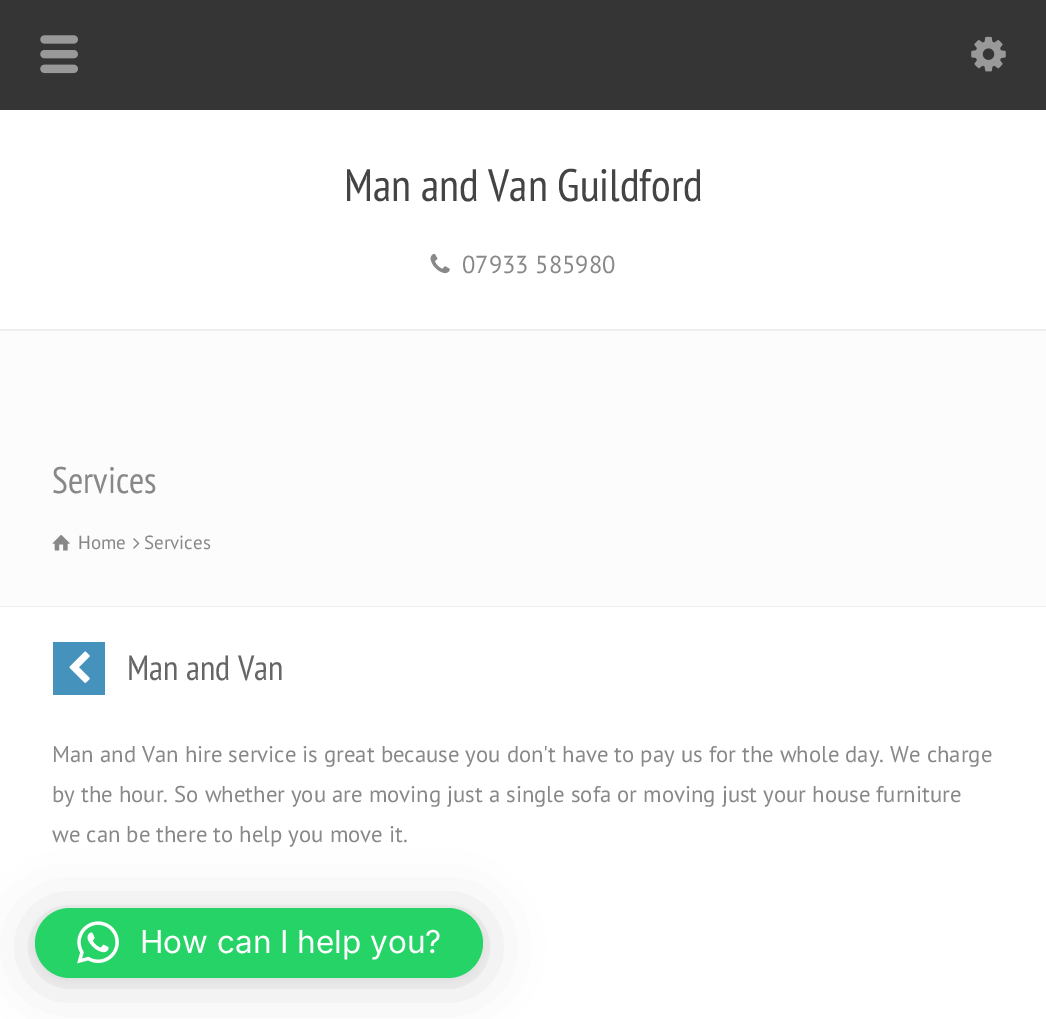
%!PS
<< /PageSize [1046 1019] /PageUsesTransparency true >> setpagedevice
/fl/fill load def
/co { dup -16 bitshift 255 div exch dup -8 bitshift 255 and 255 div exch 255 and 255 div setrgbcolor } def
/fn { [ exch dup neg 0 0 3 -1 roll 0 0 ] selectfont } def
/tx { co fn moveto show } def
/bx { co rectfill } def
/al { dup .setfillconstantalpha .setstrokeconstantalpha } def
/rr { 5 dict begin { /r /h /w /y /x } { exch def } forall
  x r add y moveto x w add y 2 copy h add r arct x w add y h add x 1 index r arct
  x y h add x y r arct x y 2 copy exch w add exch r arct closepath end } def
/sh { 12 dict begin { /a /b /q /h /w /y /x } { exch def } forall gsave /was 0 def
  9 -2 -9 { dup b mul 4 div /e exch def 1 sub .425 mul 2.718 exch exp 1 add a .99 .min exch div /now exch def
    1 1 now sub 1 was sub div sub al /was now def
    w h .min e 2 mul add 0 gt { x e sub y e sub w e 2 mul add h e 2 mul add
      q e add b .6 mul add w h .min 2 div e add .min 0 .max rr fill } if } for grestore end } def
/im { 5 dict begin { /h /w /y /x /name } { exch def } forall
  gsave x y translate w h scale
  w h 8 [w 0 0 h 0 0] name (r) file false 3 colorimage grestore end } def
0 .pushpdf14devicefilter
0 1019 translate 1 -1 scale
4 setmiterlimit
0 0 1046 1019 16#FFFFFF bx
0 0 1046 110 16#353535 bx
(media/1.raw) 40 35 38 39 im
(media/2.raw) 971 36 35 36 im
(media/3.raw) 430 253 20 21 im
0 331 1046 275 16#FCFCFC bx
0 329 1046 2 16#EEEEEE bx
0 606 1046 1 16#EEEEEE bx
(media/4.raw) 52 535 18 16 im
(media/5.raw) 133 538 7 11 im
53 642 52 53 16#4593BC bx
(media/6.raw) 69 651 21 32 im
16#000000 co
35 912 448 70 35 28 .16 sh
35 910 448 70 35 5 .06 sh
16#25D366 co
35 908 448 70 35 rr fl
(media/7.raw) 77 921 42 43 im
(Man and Van Guildford) 344 201 /PTSansNarrow-Regular 45.5 16#444444 tx
(07933 585980) 462 273 /PTSans-Regular 24.5 16#888888 tx
(Services) 52 493 /PTSansNarrow-Regular 37 16#888888 tx
(Home) 78 549 /PTSans-Regular 19 16#888888 tx
(Services) 144 549 /PTSans-Regular 19 16#888888 tx
(Man and Van) 127 680 /PTSansNarrow-Regular 35 16#666666 tx
(Man and Van hire service is great because you don't have to pay us for the whole day. We charge) 52 762 /PTSans-Regular 22.75 16#888888 tx
(by the hour. So whether you are moving just a single sofa or moving just your house furniture) 52 802 /PTSans-Regular 22.75 16#888888 tx
(we can be there to help you move it.) 52 842 /PTSans-Regular 22.75 16#888888 tx
(How can I help you?) 140 953 /Inter-Regular 31.5 16#FFFFFF tx
.poppdf14devicefilter showpage
